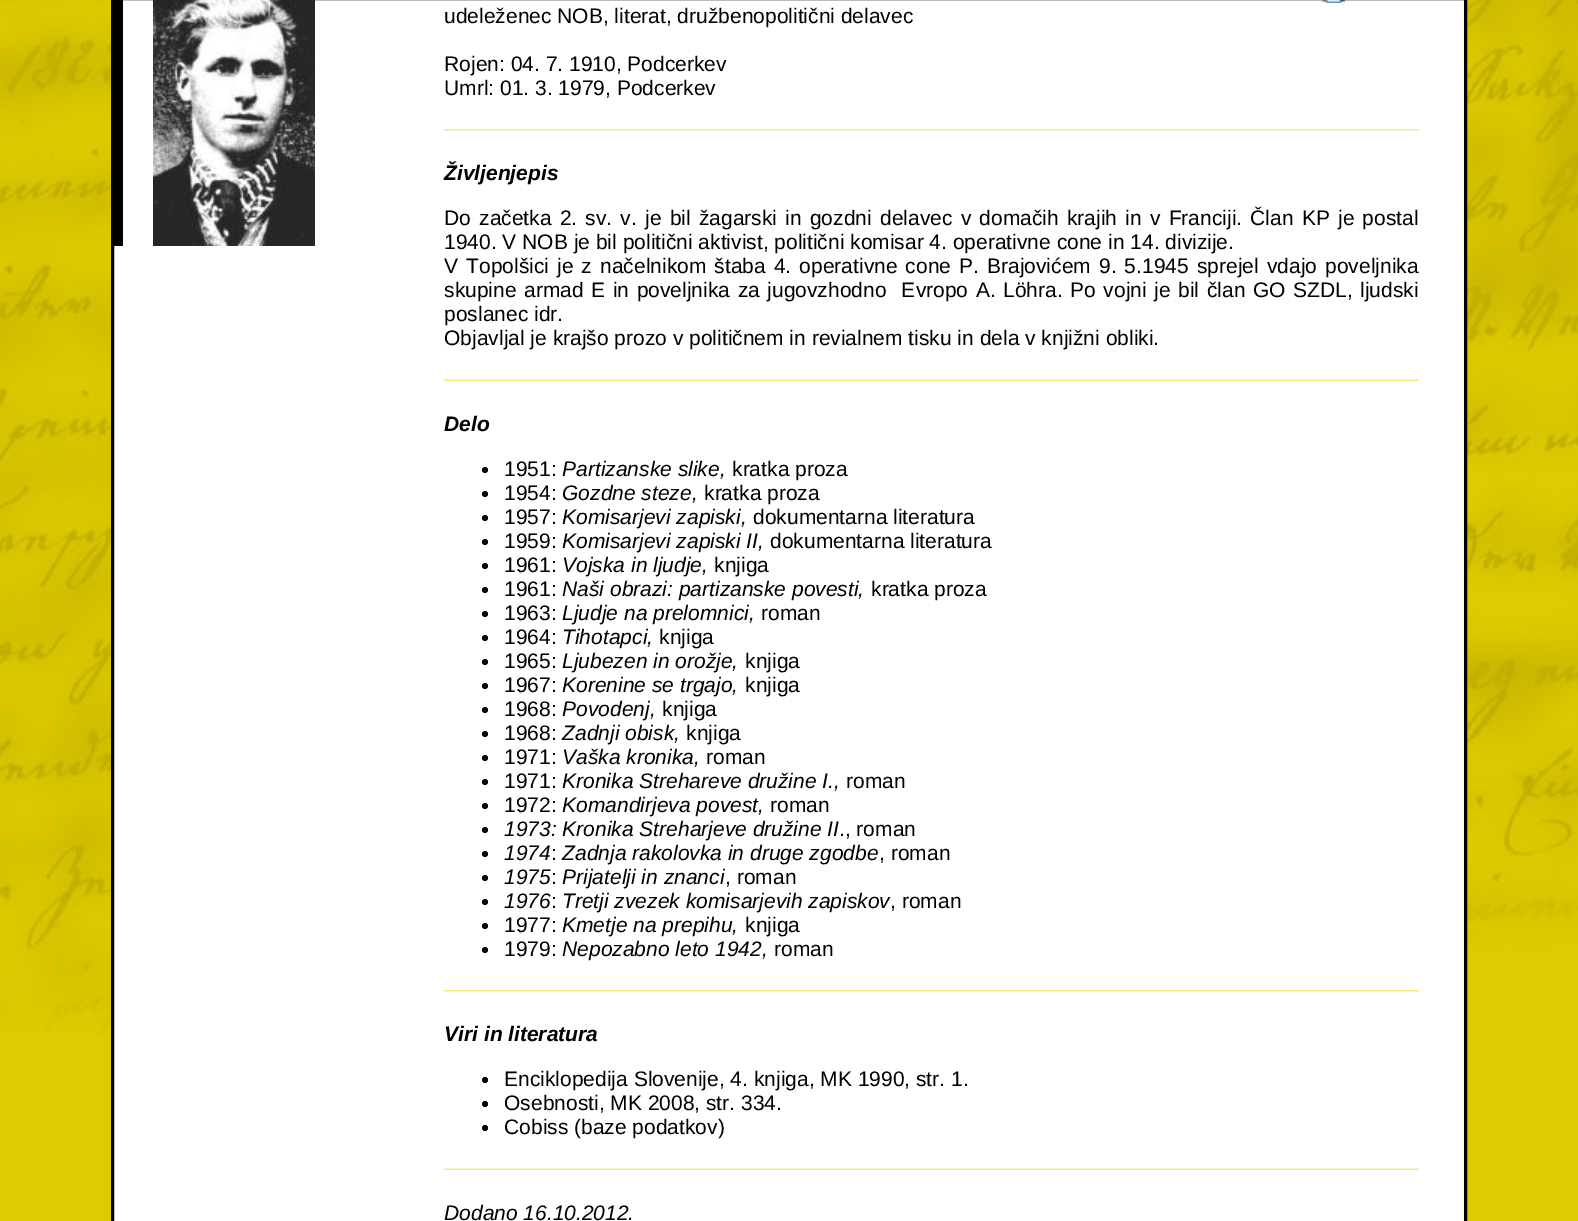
%!PS
<< /PageSize [1578 1221] >> setpagedevice
/mt/moveto load def
/li/lineto load def
/cp/closepath load def
/fl/fill load def
/st/stroke load def
/gs/gsave load def
/gr/grestore load def
/lw/setlinewidth load def
/co { dup -16 bitshift 255 div exch dup -8 bitshift 255 and 255 div exch 255 and 255 div setrgbcolor } def
/fn { [ exch dup neg 0 0 3 -1 roll 0 0 ] selectfont } def
/tx { co fn moveto show } def
/bx { co rectfill } def
/ci { newpath 0 360 arc closepath } def
/im { 5 dict begin { /h /w /y /x /name } { exch def } forall
  gsave x y translate w h scale
  w h 8 [w 0 0 h 0 0] name (r) file false 3 colorimage grestore end } def
0 1221 translate 1 -1 scale
4 setmiterlimit
0 0 1578 1221 16#DFCB00 bx
(media/1.raw) 0 0 1578 1034 im
16#FFFFFF co
112.5 -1.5 mt 1465.5 -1.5 li 1465.5 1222.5 li 112.5 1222.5 li cp gs fl gr
16#000000 co
3 lw
st
114 0 9 246 16#000000 bx
(media/2.raw) 153 0 162 246 im
(media/3.raw) 1321 0 25 3 im
(media/4.raw) 444 129 975 2 im
(media/5.raw) 444 379 975 2 im
485 470 3 ci fl
485 494 3 ci fl
485 518 3 ci fl
485 542 3 ci fl
485 566 3 ci fl
485 590 3 ci fl
485 614 3 ci fl
485 638 3 ci fl
485 662 3 ci fl
485 686 3 ci fl
485 710 3 ci fl
485 734 3 ci fl
485 758 3 ci fl
485 782 3 ci fl
485 806 3 ci fl
485 830 3 ci fl
485 854 3 ci fl
485 878 3 ci fl
485 902 3 ci fl
485 926 3 ci fl
485 950 3 ci fl
(media/4.raw) 444 990 975 2 im
485 1080 3 ci fl
485 1104 3 ci fl
485 1128 3 ci fl
(media/5.raw) 444 1168 975 2 im
(udeleženec NOB, literat, družbenopolitični delavec) 444 23 /LiberationSans-Regular 21 16#000000 tx
(Rojen: 04. 7. 1910, Podcerkev) 444 71 /LiberationSans-Regular 21 16#000000 tx
(Umrl: 01. 3. 1979, Podcerkev) 444 95 /LiberationSans-Regular 21 16#000000 tx
(Življenjepis) 444 180 /LiberationSans-BoldItalic 21 16#000000 tx
/LiberationSans-Regular 21 fn
444 225 mt 2.4 0 32 (Do začetka 2. sv. v. je bil žagarski in gozdni delavec v domačih krajih in v Franciji. Član KP je postal) widthshow
(1940. V NOB je bil politični aktivist, politični komisar 4. operativne cone in 14. divizije.) 444 249 /LiberationSans-Regular 21 16#000000 tx
444 273 mt 2.25 0 32 (V Topolšici je z načelnikom štaba 4. operativne cone P. Brajovićem 9. 5.1945 sprejel vdajo poveljnika) widthshow
444 297 mt 1.75 0 32 (skupine armad E in poveljnika za jugovzhodno  Evropo A. Löhra. Po vojni je bil član GO SZDL, ljudski) widthshow
(poslanec idr.) 444 321 /LiberationSans-Regular 21 16#000000 tx
(Objavljal je krajšo prozo v političnem in revialnem tisku in dela v knjižni obliki.) 444 345 /LiberationSans-Regular 21 16#000000 tx
(Delo) 444 431 /LiberationSans-BoldItalic 21 16#000000 tx
(1951:) 504 476 /LiberationSans-Regular 21 16#000000 tx
(Partizanske slike,) 562 476 /LiberationSans-Italic 21 16#000000 tx
(kratka proza) 732 476 /LiberationSans-Regular 21 16#000000 tx
(1954:) 504 500 /LiberationSans-Regular 21 16#000000 tx
(Gozdne steze,) 562 500 /LiberationSans-Italic 21 16#000000 tx
(kratka proza) 704 500 /LiberationSans-Regular 21 16#000000 tx
(1957:) 504 524 /LiberationSans-Regular 21 16#000000 tx
(Komisarjevi zapiski,) 562 524 /LiberationSans-Italic 21 16#000000 tx
(dokumentarna literatura) 753 524 /LiberationSans-Regular 21 16#000000 tx
(1959:) 504 548 /LiberationSans-Regular 21 16#000000 tx
(Komisarjevi zapiski II,) 562 548 /LiberationSans-Italic 21 16#000000 tx
(dokumentarna literatura) 770 548 /LiberationSans-Regular 21 16#000000 tx
(1961:) 504 572 /LiberationSans-Regular 21 16#000000 tx
(Vojska in ljudje,) 562 572 /LiberationSans-Italic 21 16#000000 tx
(knjiga) 714 572 /LiberationSans-Regular 21 16#000000 tx
(1961:) 504 596 /LiberationSans-Regular 21 16#000000 tx
(Naši obrazi: partizanske povesti,) 562 596 /LiberationSans-Italic 21 16#000000 tx
(kratka proza) 871 596 /LiberationSans-Regular 21 16#000000 tx
(1963:) 504 620 /LiberationSans-Regular 21 16#000000 tx
(Ljudje na prelomnici,) 562 620 /LiberationSans-Italic 21 16#000000 tx
(roman) 761 620 /LiberationSans-Regular 21 16#000000 tx
(1964:) 504 644 /LiberationSans-Regular 21 16#000000 tx
(Tihotapci,) 562 644 /LiberationSans-Italic 21 16#000000 tx
(knjiga) 659 644 /LiberationSans-Regular 21 16#000000 tx
(1965:) 504 668 /LiberationSans-Regular 21 16#000000 tx
(Ljubezen in orožje,) 562 668 /LiberationSans-Italic 21 16#000000 tx
(knjiga) 745 668 /LiberationSans-Regular 21 16#000000 tx
(1967:) 504 692 /LiberationSans-Regular 21 16#000000 tx
(Korenine se trgajo,) 562 692 /LiberationSans-Italic 21 16#000000 tx
(knjiga) 745 692 /LiberationSans-Regular 21 16#000000 tx
(1968:) 504 716 /LiberationSans-Regular 21 16#000000 tx
(Povodenj,) 562 716 /LiberationSans-Italic 21 16#000000 tx
(knjiga) 662 716 /LiberationSans-Regular 21 16#000000 tx
(1968:) 504 740 /LiberationSans-Regular 21 16#000000 tx
(Zadnji obisk,) 562 740 /LiberationSans-Italic 21 16#000000 tx
(knjiga) 686 740 /LiberationSans-Regular 21 16#000000 tx
(1971:) 504 764 /LiberationSans-Regular 21 16#000000 tx
(Vaška kronika,) 562 764 /LiberationSans-Italic 21 16#000000 tx
(roman) 706 764 /LiberationSans-Regular 21 16#000000 tx
(1971:) 504 788 /LiberationSans-Regular 21 16#000000 tx
(Kronika Strehareve družine I.,) 562 788 /LiberationSans-Italic 21 16#000000 tx
(roman) 846 788 /LiberationSans-Regular 21 16#000000 tx
(1972:) 504 812 /LiberationSans-Regular 21 16#000000 tx
(Komandirjeva povest,) 562 812 /LiberationSans-Italic 21 16#000000 tx
(roman) 770 812 /LiberationSans-Regular 21 16#000000 tx
(1973: Kronika Streharjeve družine II) 504 836 /LiberationSans-Italic 21 16#000000 tx
(., roman) 839 836 /LiberationSans-Regular 21 16#000000 tx
(1974) 504 860 /LiberationSans-Italic 21 16#000000 tx
(:) 551 860 /LiberationSans-Regular 21 16#000000 tx
(Zadnja rakolovka in druge zgodbe) 562 860 /LiberationSans-Italic 21 16#000000 tx
(, roman) 879 860 /LiberationSans-Regular 21 16#000000 tx
(1975) 504 884 /LiberationSans-Italic 21 16#000000 tx
(:) 551 884 /LiberationSans-Regular 21 16#000000 tx
(Prijatelji in znanci) 562 884 /LiberationSans-Italic 21 16#000000 tx
(, roman) 725 884 /LiberationSans-Regular 21 16#000000 tx
(1976) 504 908 /LiberationSans-Italic 21 16#000000 tx
(:) 551 908 /LiberationSans-Regular 21 16#000000 tx
(Tretji zvezek komisarjevih zapiskov) 562 908 /LiberationSans-Italic 21 16#000000 tx
(, roman) 890 908 /LiberationSans-Regular 21 16#000000 tx
(1977:) 504 932 /LiberationSans-Regular 21 16#000000 tx
(Kmetje na prepihu,) 562 932 /LiberationSans-Italic 21 16#000000 tx
(knjiga) 745 932 /LiberationSans-Regular 21 16#000000 tx
(1979:) 504 956 /LiberationSans-Regular 21 16#000000 tx
(Nepozabno leto 1942,) 562 956 /LiberationSans-Italic 21 16#000000 tx
(roman) 774 956 /LiberationSans-Regular 21 16#000000 tx
(Viri in literatura) 444 1041 /LiberationSans-BoldItalic 21 16#000000 tx
(Enciklopedija Slovenije, 4. knjiga, MK 1990, str. 1.) 504 1086 /LiberationSans-Regular 21 16#000000 tx
(Osebnosti, MK 2008, str. 334.) 504 1110 /LiberationSans-Regular 21 16#000000 tx
(Cobiss \(baze podatkov\)) 504 1134 /LiberationSans-Regular 21 16#000000 tx
(Dodano 16.10.2012.) 444 1220 /LiberationSans-Italic 21 16#000000 tx
showpage
